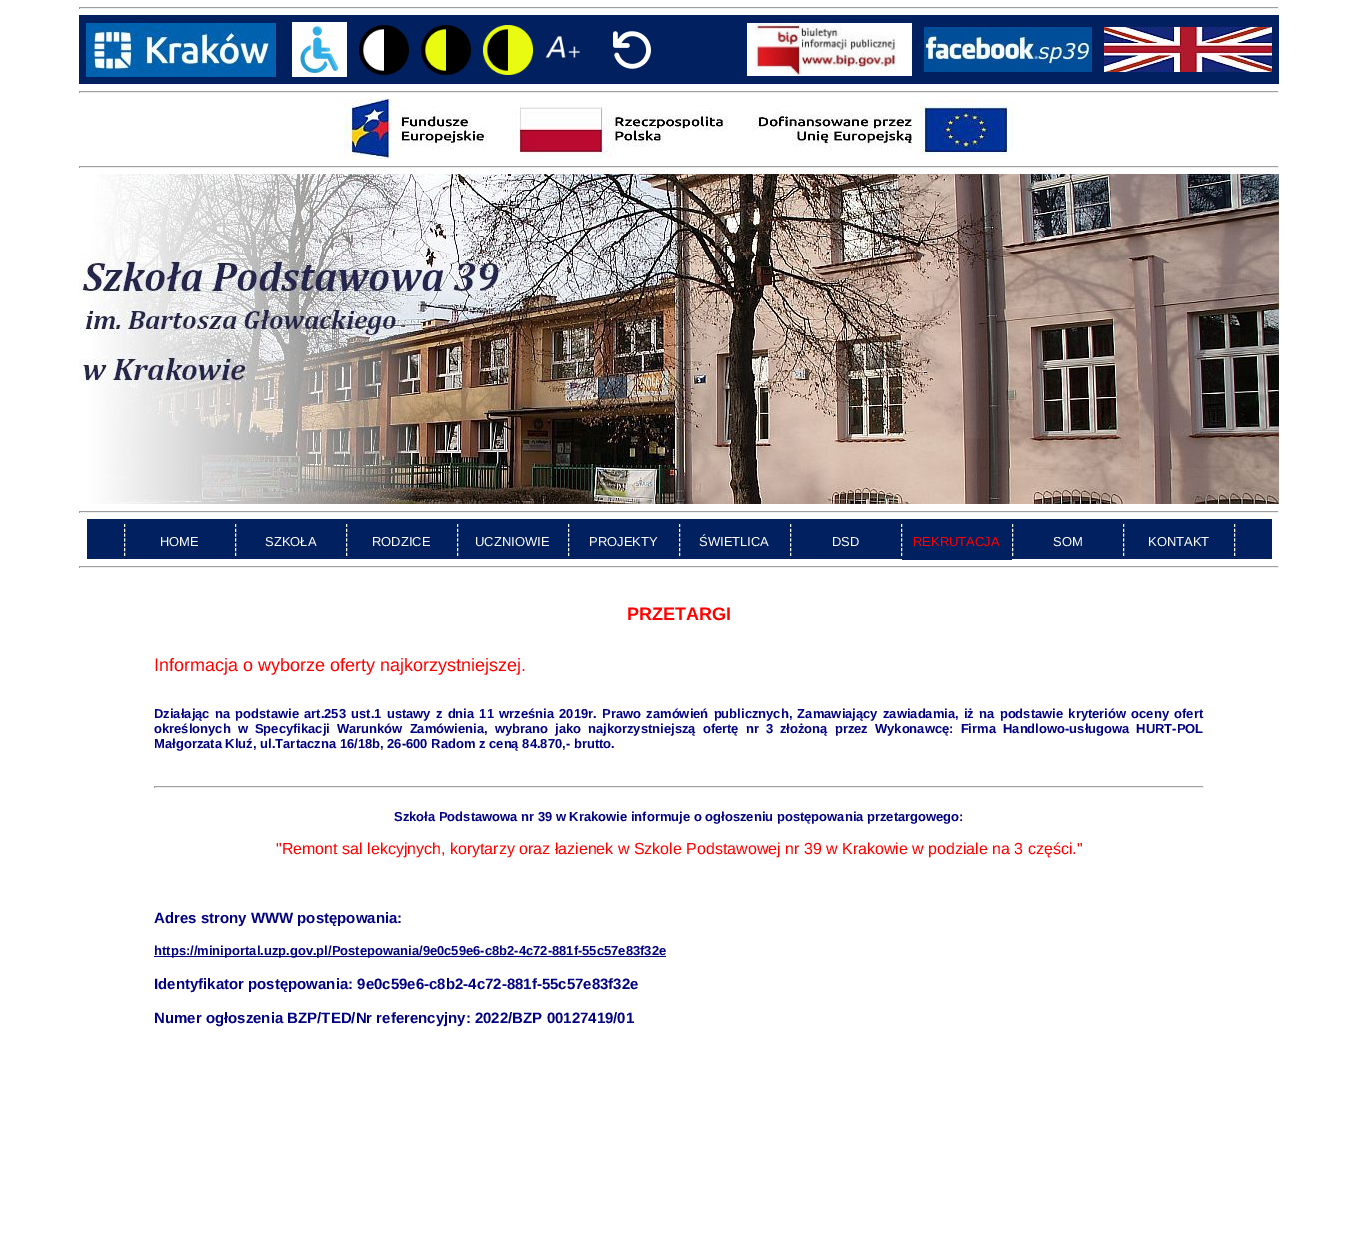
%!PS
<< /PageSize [1358 1249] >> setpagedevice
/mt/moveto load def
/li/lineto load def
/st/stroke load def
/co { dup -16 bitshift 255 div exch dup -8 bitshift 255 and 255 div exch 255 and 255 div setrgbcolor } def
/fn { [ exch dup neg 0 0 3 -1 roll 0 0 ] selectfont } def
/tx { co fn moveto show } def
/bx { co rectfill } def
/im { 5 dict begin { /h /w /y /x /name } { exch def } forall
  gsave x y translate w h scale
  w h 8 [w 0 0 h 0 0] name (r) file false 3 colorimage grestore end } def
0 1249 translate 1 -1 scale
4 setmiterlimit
0 0 1358 1249 16#FFFFFF bx
79 7 1200 1 16#9F9F9F bx
1278 7 1 2 16#EEEEEE bx
79 8 1200 1 16#EEEEEE bx
79 7 1 2 16#9F9F9F bx
79 15 1200 69 16#012060 bx
(media/1.raw) 86 23 190 54 im
(media/2.raw) 292 22 55 55 im
(media/3.raw) 359 25 50 50 im
(media/4.raw) 421 25 50 50 im
(media/5.raw) 483 25 50 50 im
(media/6.raw) 545 36 35 22 im
(media/7.raw) 613 31 38 38 im
(media/8.raw) 747 23 165 53 im
(media/9.raw) 924 27 168 45 im
(media/10.raw) 1104 27 168 45 im
79 91 1200 1 16#9F9F9F bx
1278 91 1 2 16#EEEEEE bx
79 92 1200 1 16#EEEEEE bx
79 91 1 2 16#9F9F9F bx
(media/11.raw) 344 99 670 60 im
79 166 1200 1 16#9F9F9F bx
1278 166 1 2 16#EEEEEE bx
79 167 1200 1 16#EEEEEE bx
79 166 1 2 16#9F9F9F bx
(media/12.raw) 79 174 1200 330 im
79 511 1200 1 16#9F9F9F bx
1278 511 1 2 16#EEEEEE bx
79 512 1200 1 16#EEEEEE bx
79 511 1 2 16#9F9F9F bx
87 519 1185 40 16#012060 bx
16#FFFFFF co
[3 1.83] 0 setdash
235.5 524 mt 235.5 556 li st
124.5 524 mt 124.5 556 li st
346.5 524 mt 346.5 556 li st
457.5 524 mt 457.5 556 li st
568.5 524 mt 568.5 556 li st
679.5 524 mt 679.5 556 li st
790.5 524 mt 790.5 556 li st
901.5 524 mt 901.5 556 li st
1012.5 524 mt 1012.5 556 li st
902 559 110 1 16#012060 bx
16#FFFFFF co
1123.5 524 mt 1123.5 556 li st
1234.5 524 mt 1234.5 556 li st
79 566 1200 1 16#9F9F9F bx
1278 566 1 2 16#EEEEEE bx
79 567 1200 1 16#EEEEEE bx
79 566 1 2 16#9F9F9F bx
154 786 1050 1 16#9F9F9F bx
1203 786 1 2 16#EEEEEE bx
154 787 1050 1 16#EEEEEE bx
154 786 1 2 16#9F9F9F bx
154 956 512 1 16#000080 bx
(HOME) 160 546 /LiberationSans-Regular 13 16#FFFFFF tx
(SZKOŁA) 265 546 /LiberationSans-Regular 13 16#FFFFFF tx
(RODZICE) 372 546 /LiberationSans-Regular 13 16#FFFFFF tx
(UCZNIOWIE) 475 546 /LiberationSans-Regular 13 16#FFFFFF tx
(PROJEKTY) 589 546 /LiberationSans-Regular 13 16#FFFFFF tx
(ŚWIETLICA) 699 546 /LiberationSans-Regular 13 16#FFFFFF tx
(DSD) 832 546 /LiberationSans-Regular 13 16#FFFFFF tx
(REKRUTACJA) 913 546 /LiberationSans-Regular 13 16#FF0000 tx
(SOM) 1053 546 /LiberationSans-Regular 13 16#FFFFFF tx
(KONTAKT) 1148 546 /LiberationSans-Regular 13 16#FFFFFF tx
(PRZETARGI) 627 620 /LiberationSans-Bold 18 16#FF0000 tx
(Informacja o wyborze oferty najkorzystniejszej.) 154 671 /LiberationSans-Regular 18 16#FF0000 tx
/LiberationSans-Bold 13 fn
16#000080 co
154 718 mt 1.6 0 32 (Działając na podstawie art.253 ust.1 ustawy z dnia 11 września 2019r. Prawo zamówień publicznych, Zamawiający zawiadamia, iż na podstawie kryteriów oceny ofert) widthshow
154 733 mt 3.4 0 32 (określonych w Specyfikacji Warunków Zamówienia, wybrano jako najkorzystniejszą ofertę nr 3 złożoną przez Wykonawcę: Firma Handlowo-usługowa HURT-POL) widthshow
(Małgorzata Kluź, ul.Tartaczna 16/18b, 26-600 Radom z ceną 84.870,- brutto.) 154 748 /LiberationSans-Bold 13 16#000080 tx
(Szkoła Podstawowa nr 39 w Krakowie informuje o ogłoszeniu postępowania przetargowego:) 394 821 /LiberationSans-Bold 13 16#000080 tx
("Remont sal lekcyjnych, korytarzy oraz łazienek w Szkole Podstawowej nr 39 w Krakowie w podziale na 3 części.") 276 854 /LiberationSans-Regular 16 16#FF0000 tx
(Adres strony WWW postępowania:) 154 923 /LiberationSans-Bold 15 16#000080 tx
(https://miniportal.uzp.gov.pl/Postepowania/9e0c59e6-c8b2-4c72-881f-55c57e83f32e) 154 955 /LiberationSans-Bold 13 16#000080 tx
(Identyfikator postępowania: 9e0c59e6-c8b2-4c72-881f-55c57e83f32e) 154 989 /LiberationSans-Bold 15 16#000080 tx
(Numer ogłoszenia BZP/TED/Nr referencyjny: 2022/BZP 00127419/01) 154 1023 /LiberationSans-Bold 15 16#000080 tx
showpage
